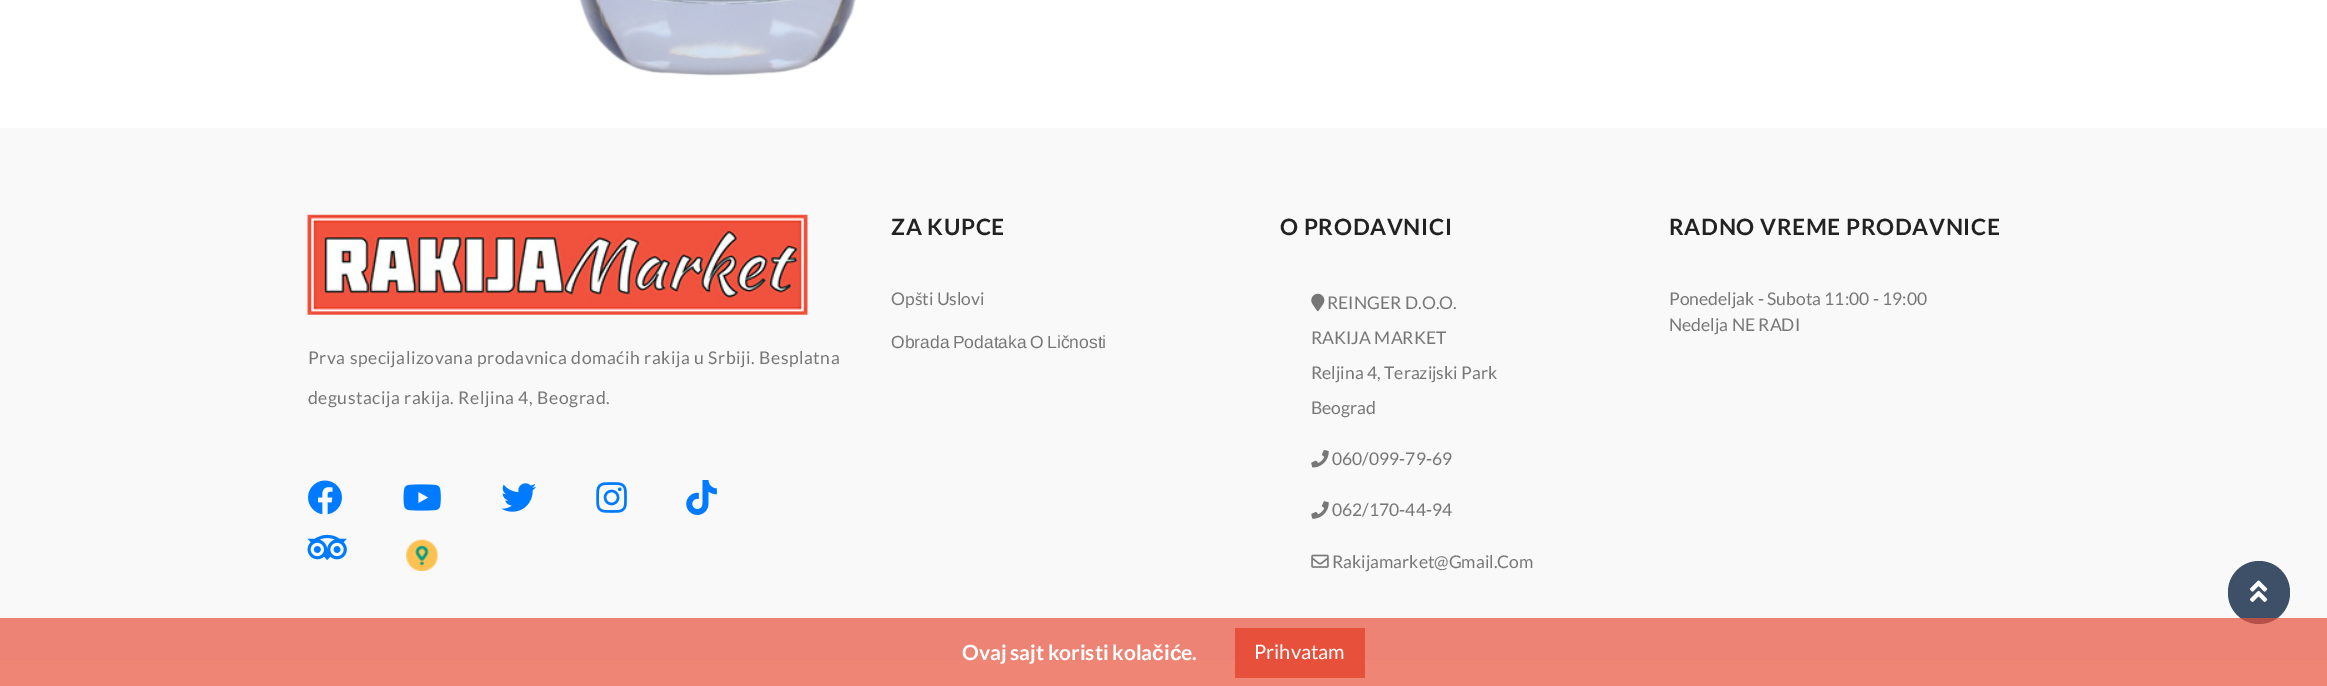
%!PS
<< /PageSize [2327 686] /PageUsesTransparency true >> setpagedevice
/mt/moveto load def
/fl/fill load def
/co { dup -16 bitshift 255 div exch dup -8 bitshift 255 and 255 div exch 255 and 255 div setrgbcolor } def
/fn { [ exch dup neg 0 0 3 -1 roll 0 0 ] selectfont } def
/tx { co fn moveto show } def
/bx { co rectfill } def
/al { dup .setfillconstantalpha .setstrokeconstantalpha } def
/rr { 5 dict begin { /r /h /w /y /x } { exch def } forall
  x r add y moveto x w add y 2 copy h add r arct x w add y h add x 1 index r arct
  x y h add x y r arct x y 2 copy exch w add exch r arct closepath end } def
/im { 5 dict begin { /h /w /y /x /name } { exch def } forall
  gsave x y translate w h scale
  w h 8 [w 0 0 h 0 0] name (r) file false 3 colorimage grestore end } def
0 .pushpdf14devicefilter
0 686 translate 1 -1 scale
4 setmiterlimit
0 0 2327 686 16#FFFFFF bx
(media/1.raw) 579 0 277 76 im
0 128 2327 532 16#F9F9F9 bx
(media/2.raw) 1311 293 14 19 im
(media/3.raw) 1311 450 18 18 im
(media/4.raw) 1311 501 18 18 im
(media/5.raw) 1311 554 18 14 im
(media/6.raw) 307 214 501 101 im
(media/7.raw) 308 480 34 35 im
(media/8.raw) 403 484 38 27 im
(media/9.raw) 501 483 36 29 im
(media/10.raw) 596 482 31 31 im
(media/11.raw) 686 480 31 35 im
(media/12.raw) 307 534 40 26 im
(media/13.raw) 406 539 32 32 im
16#3E5067 co
2228 561 62 63 31 rr fl
(media/14.raw) 2250 580 18 22 im
0.7 al
0 618 2327 68 16#E7513B bx
1 al
1235 628 130 50 16#E7513B bx
/Lato-Bold 22.5 fn
16#222222 co
891 235 mt .7 0 (ZA KUPCE) ashow
(Opšti Uslovi) 891 305 /Lato-Regular 17.5 16#777777 tx
/LiberationSans-Regular 17.5 fn
891 348 mt -1.5 0 32 (Obrada Podataka O Ličnosti) widthshow
/Lato-Bold 22.5 fn
16#222222 co
1280 235 mt .7 0 (O PRODAVNICI) ashow
(REINGER D.O.O.) 1327 309 /Lato-Regular 17.5 16#777777 tx
(RAKIJA MARKET) 1311 344 /Lato-Regular 17.5 16#777777 tx
(Reljina 4, Terazijski Park) 1311 379 /Lato-Regular 17.5 16#777777 tx
(Beograd) 1311 414 /Lato-Regular 17.5 16#777777 tx
(060/099-79-69) 1332 465 /Lato-Regular 17.5 16#777777 tx
(062/170-44-94) 1332 516 /Lato-Regular 17.5 16#777777 tx
(Rakijamarket@Gmail.Com) 1332 568 /Lato-Regular 17.5 16#777777 tx
/Lato-Bold 22.5 fn
16#222222 co
1669 235 mt .7 0 (RADNO VREME PRODAVNICE) ashow
(Ponedeljak - Subota 11:00 - 19:00) 1669 305 /Lato-Regular 17.5 16#777777 tx
(Nedelja NE RADI) 1669 331 /Lato-Regular 17.5 16#777777 tx
308 364 mt .53 0 (Prva specijalizovana prodavnica domaćih rakija u Srbiji. Besplatna) ashow
308 404 mt .53 0 (degustacija rakija. Reljina 4, Beograd.) ashow
/Lato-Bold 21 fn
16#FFFFFF co
962 660 mt -.5 0 32 (Ovaj sajt koristi kola) widthshow
(č ć) 1152 660 /LiberationSans-Bold 21 16#FFFFFF tx
(i) 1164 660 /Lato-Bold 21 16#FFFFFF tx
(e.) 1181 660 /Lato-Bold 21 16#FFFFFF tx
(Prihvatam) 1254 659 /Lato-Regular 20 16#FFFFFF tx
.poppdf14devicefilter showpage
